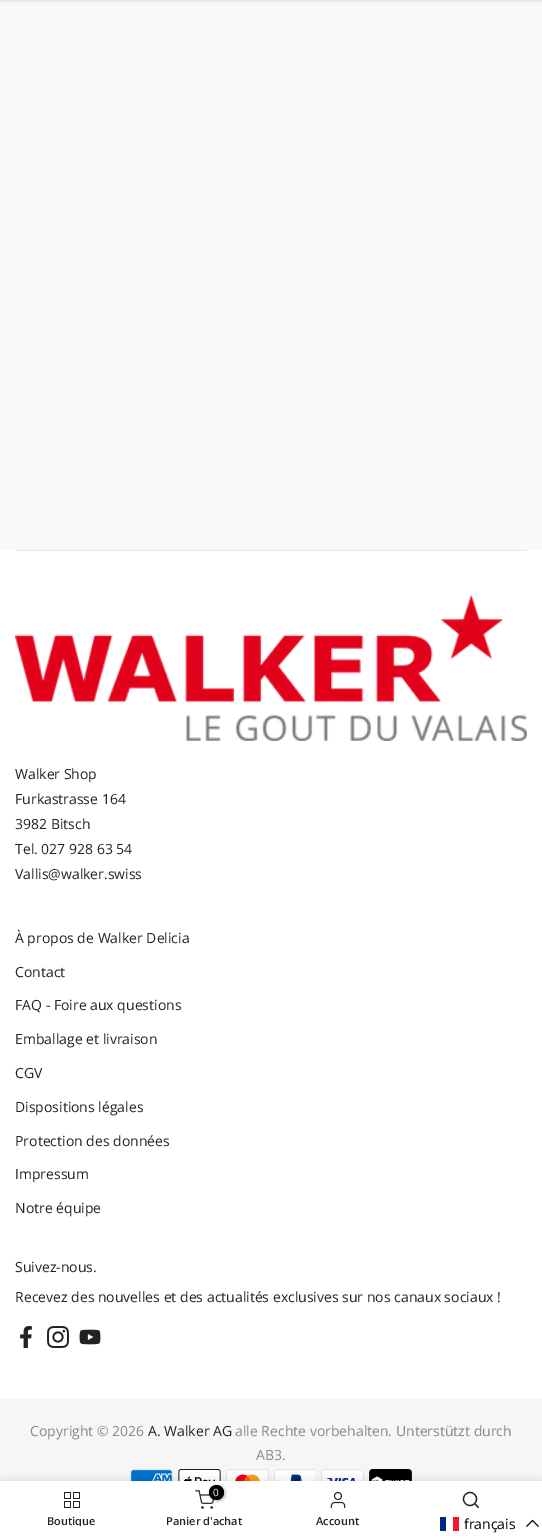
%!PS
<< /PageSize [542 1536] /PageUsesTransparency true >> setpagedevice
/mt/moveto load def
/li/lineto load def
/fl/fill load def
/st/stroke load def
/gs/gsave load def
/gr/grestore load def
/lw/setlinewidth load def
/co { dup -16 bitshift 255 div exch dup -8 bitshift 255 and 255 div exch 255 and 255 div setrgbcolor } def
/fn { [ exch dup neg 0 0 3 -1 roll 0 0 ] selectfont } def
/tx { co fn moveto show } def
/bx { co rectfill } def
/al { dup .setfillconstantalpha .setstrokeconstantalpha } def
/ci { newpath 0 360 arc closepath } def
/rr { 5 dict begin { /r /h /w /y /x } { exch def } forall
  x r add y moveto x w add y 2 copy h add r arct x w add y h add x 1 index r arct
  x y h add x y r arct x y 2 copy exch w add exch r arct closepath end } def
/sh { 12 dict begin { /a /b /q /h /w /y /x } { exch def } forall gsave /was 0 def
  9 -2 -9 { dup b mul 4 div /e exch def 1 sub .425 mul 2.718 exch exp 1 add a .99 .min exch div /now exch def
    1 1 now sub 1 was sub div sub al /was now def
    w h .min e 2 mul add 0 gt { x e sub y e sub w e 2 mul add h e 2 mul add
      q e add b .6 mul add w h .min 2 div e add .min 0 .max rr fill } if } for grestore end } def
/im { 5 dict begin { /h /w /y /x /name } { exch def } forall
  gsave x y translate w h scale
  w h 8 [w 0 0 h 0 0] name (r) file false 3 colorimage grestore end } def
0 .pushpdf14devicefilter
0 1536 translate 1 -1 scale
4 setmiterlimit
0 0 542 1536 16#F8FAF9 bx
16#000000 co
0 -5 542 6 0 1.5 .1 sh
0 550 542 849 16#FFFFFF bx
15 550 512 1 16#E6E6E6 bx
(media/1.raw) 15 595 512 146 im
(media/2.raw) 20 1326 12 22 im
(media/3.raw) 47 1326 22 22 im
(media/4.raw) 79 1329 22 16 im
0 1399 542 82 16#F6F6F8 bx
(media/5.raw) 130 1469 43 12 im
(media/6.raw) 178 1469 43 12 im
(media/7.raw) 226 1469 43 12 im
(media/8.raw) 274 1469 42 12 im
(media/9.raw) 321 1469 43 12 im
(media/10.raw) 369 1469 43 12 im
16#000000 co
0 1481 542 55 0 4.5 .12 sh
0 1481 542 55 16#FFFFFF bx
(media/11.raw) 195 1490 19 19 im
16#000000 co
210 1486 15 15 7.5 1.5 .3 sh
216.5 1492.5 7.5 ci fl
16#222222 co
1.2 lw
470 1499 6.5 ci st
1 setlinecap
1 setlinejoin
478.5 1507.5 mt 475 1504 li st
(media/12.raw) 64 1492 16 16 im
(media/13.raw) 330 1491 16 18 im
440 1517 6 14 16#00267F bx
453 1517 6 14 16#F31830 bx
16#000000 co
1 lw
0 setlinecap
0 setlinejoin
538.5 1526.5 mt 532.5 1520.5 li 526.5 1526.5 li st
(Walker Shop) 15 779 /OpenSans-Regular 14 16#222222 tx
(Furkastrasse 164) 15 804 /OpenSans-Regular 14 16#222222 tx
(3982 Bitsch) 15 829 /OpenSans-Regular 14 16#222222 tx
(Tel. 027 928 63 54) 15 854 /OpenSans-Regular 14 16#222222 tx
(Vallis@walker.swiss) 15 879 /OpenSans-Regular 14 16#222222 tx
(À propos de Walker Delicia) 15 943 /OpenSans-Regular 14 16#222222 tx
(Contact) 15 977 /OpenSans-Regular 14 16#222222 tx
(FAQ - Foire aux questions) 15 1010 /OpenSans-Regular 14 16#222222 tx
(Emballage et livraison) 15 1044 /OpenSans-Regular 14 16#222222 tx
(CGV) 15 1078 /OpenSans-Regular 14 16#222222 tx
(Dispositions légales) 15 1112 /OpenSans-Regular 14 16#222222 tx
(Protection des données) 15 1146 /OpenSans-Regular 14 16#222222 tx
(Impressum) 15 1179 /OpenSans-Regular 14 16#222222 tx
(Notre équipe) 15 1213 /OpenSans-Regular 14 16#222222 tx
(Suivez-nous.) 15 1272 /OpenSans-Regular 14 16#222222 tx
(Recevez des nouvelles et des actualités exclusives sur nos canaux sociaux !) 15 1302 /OpenSans-Regular 14 16#222222 tx
(Copyright © 2026) 30 1436 /OpenSans-Regular 14 16#878787 tx
(A. Walker AG) 148 1436 /OpenSans-Regular 14 16#222222 tx
(alle Rechte vorbehalten. Unterstützt durch) 235 1436 /OpenSans-Regular 14 16#878787 tx
(AB3.) 256 1460 /OpenSans-Regular 14 16#878787 tx
(0) 213 1496 /OpenSans-Regular 10 16#FFFFFF tx
(Panier d'achat) 166 1525 /OpenSans-SemiBold 11 16#222222 tx
gs
15 1515 113 11 rectclip
(Boutique) 47 1525 /OpenSans-SemiBold 11 16#222222 tx
gr
(Account) 316 1525 /OpenSans-SemiBold 11 16#222222 tx
(français) 464 1529 /OpenSans-Regular 14 16#000000 tx
.poppdf14devicefilter showpage
